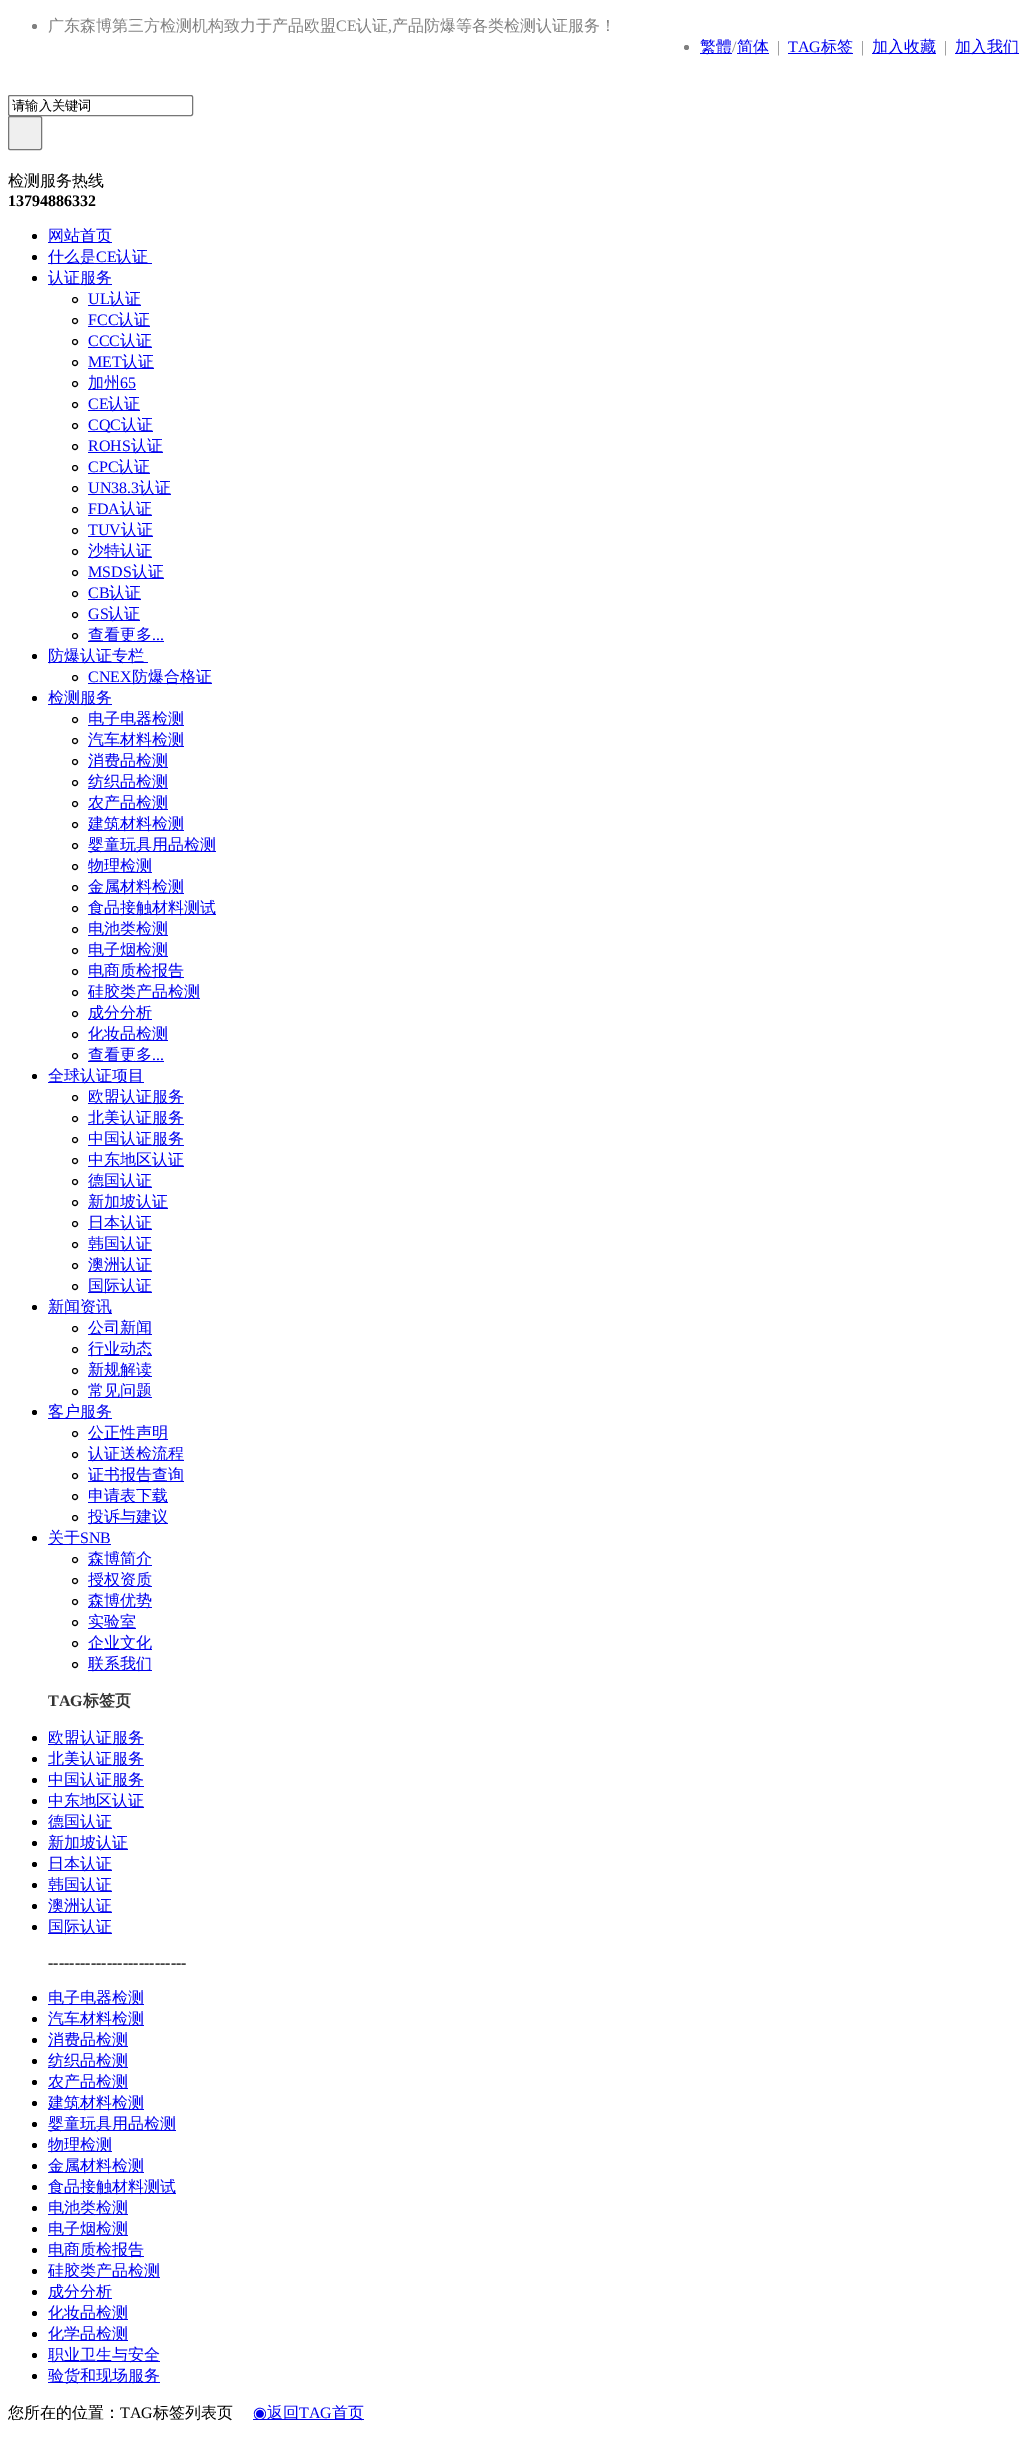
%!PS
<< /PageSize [1027 2446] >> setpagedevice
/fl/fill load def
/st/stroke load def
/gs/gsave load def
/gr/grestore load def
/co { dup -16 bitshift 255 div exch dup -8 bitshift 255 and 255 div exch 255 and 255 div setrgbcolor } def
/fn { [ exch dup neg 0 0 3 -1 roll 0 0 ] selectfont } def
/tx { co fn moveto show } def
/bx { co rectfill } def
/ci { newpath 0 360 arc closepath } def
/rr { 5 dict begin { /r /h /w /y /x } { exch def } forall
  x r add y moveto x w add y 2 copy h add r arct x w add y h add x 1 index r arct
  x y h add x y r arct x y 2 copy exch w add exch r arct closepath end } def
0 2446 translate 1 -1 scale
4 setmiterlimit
0 0 1027 2446 16#FFFFFF bx
16#808080 co
34.5 26.5 2.5 ci fl
686.5 47.5 2.5 ci fl
700 53 32 1 16#0000EE bx
737 53 32 1 16#0000EE bx
788 53 65 1 16#0000EE bx
872 53 64 1 16#0000EE bx
955 53 64 1 16#0000EE bx
16#767676 co
8.5 95.5 184 20 1.5 rr st
16#EFEFEF co
8.5 116.5 33 33 1.5 rr gs fl gr
16#767676 co
st
16#000000 co
34.5 236.5 2.5 ci fl
48 242 64 1 16#0000EE bx
16#000000 co
34.5 257.5 2.5 ci fl
48 263 104 1 16#0000EE bx
16#000000 co
34.5 278.5 2.5 ci fl
48 284 64 1 16#0000EE bx
16#000000 co
75 300 2.5 ci st
88 305 53 1 16#0000EE bx
16#000000 co
75 321 2.5 ci st
88 326 62 1 16#0000EE bx
16#000000 co
75 342 2.5 ci st
88 347 64 1 16#0000EE bx
16#000000 co
75 363 2.5 ci st
88 368 66 1 16#0000EE bx
16#000000 co
75 384 2.5 ci st
88 389 48 1 16#0000EE bx
16#000000 co
75 405 2.5 ci st
88 410 52 1 16#0000EE bx
16#000000 co
75 426 2.5 ci st
88 431 65 1 16#0000EE bx
16#000000 co
75 447 2.5 ci st
88 452 75 1 16#0000EE bx
16#000000 co
75 468 2.5 ci st
88 473 62 1 16#0000EE bx
16#000000 co
75 489 2.5 ci st
88 494 83 1 16#0000EE bx
16#000000 co
75 510 2.5 ci st
88 515 64 1 16#0000EE bx
16#000000 co
75 531 2.5 ci st
88 536 65 1 16#0000EE bx
16#000000 co
75 552 2.5 ci st
88 557 64 1 16#0000EE bx
16#000000 co
75 573 2.5 ci st
88 578 76 1 16#0000EE bx
16#000000 co
75 594 2.5 ci st
88 599 53 1 16#0000EE bx
16#000000 co
75 615 2.5 ci st
88 620 52 1 16#0000EE bx
16#000000 co
75 636 2.5 ci st
88 641 76 1 16#0000EE bx
16#000000 co
34.5 656.5 2.5 ci fl
48 662 100 1 16#0000EE bx
16#000000 co
75 678 2.5 ci st
88 683 124 1 16#0000EE bx
16#000000 co
34.5 698.5 2.5 ci fl
48 704 64 1 16#0000EE bx
16#000000 co
75 720 2.5 ci st
88 725 96 1 16#0000EE bx
16#000000 co
75 741 2.5 ci st
88 746 96 1 16#0000EE bx
16#000000 co
75 762 2.5 ci st
88 767 80 1 16#0000EE bx
16#000000 co
75 783 2.5 ci st
88 788 80 1 16#0000EE bx
16#000000 co
75 804 2.5 ci st
88 809 80 1 16#0000EE bx
16#000000 co
75 825 2.5 ci st
88 830 96 1 16#0000EE bx
16#000000 co
75 846 2.5 ci st
88 851 128 1 16#0000EE bx
16#000000 co
75 867 2.5 ci st
88 872 64 1 16#0000EE bx
16#000000 co
75 888 2.5 ci st
88 893 96 1 16#0000EE bx
16#000000 co
75 909 2.5 ci st
88 914 128 1 16#0000EE bx
16#000000 co
75 930 2.5 ci st
88 935 80 1 16#0000EE bx
16#000000 co
75 951 2.5 ci st
88 956 80 1 16#0000EE bx
16#000000 co
75 972 2.5 ci st
88 977 96 1 16#0000EE bx
16#000000 co
75 993 2.5 ci st
88 998 112 1 16#0000EE bx
16#000000 co
75 1014 2.5 ci st
88 1019 64 1 16#0000EE bx
16#000000 co
75 1035 2.5 ci st
88 1040 80 1 16#0000EE bx
16#000000 co
75 1056 2.5 ci st
88 1061 76 1 16#0000EE bx
16#000000 co
34.5 1076.5 2.5 ci fl
48 1082 96 1 16#0000EE bx
16#000000 co
75 1098 2.5 ci st
88 1103 96 1 16#0000EE bx
16#000000 co
75 1119 2.5 ci st
88 1124 96 1 16#0000EE bx
16#000000 co
75 1140 2.5 ci st
88 1145 96 1 16#0000EE bx
16#000000 co
75 1161 2.5 ci st
88 1166 96 1 16#0000EE bx
16#000000 co
75 1182 2.5 ci st
88 1187 64 1 16#0000EE bx
16#000000 co
75 1203 2.5 ci st
88 1208 80 1 16#0000EE bx
16#000000 co
75 1224 2.5 ci st
88 1229 64 1 16#0000EE bx
16#000000 co
75 1245 2.5 ci st
88 1250 64 1 16#0000EE bx
16#000000 co
75 1266 2.5 ci st
88 1271 64 1 16#0000EE bx
16#000000 co
75 1287 2.5 ci st
88 1292 64 1 16#0000EE bx
16#000000 co
34.5 1307.5 2.5 ci fl
48 1313 64 1 16#0000EE bx
16#000000 co
75 1329 2.5 ci st
88 1334 64 1 16#0000EE bx
16#000000 co
75 1350 2.5 ci st
88 1355 64 1 16#0000EE bx
16#000000 co
75 1371 2.5 ci st
88 1376 64 1 16#0000EE bx
16#000000 co
75 1392 2.5 ci st
88 1397 64 1 16#0000EE bx
16#000000 co
34.5 1412.5 2.5 ci fl
48 1418 64 1 16#0000EE bx
16#000000 co
75 1434 2.5 ci st
88 1439 80 1 16#0000EE bx
16#000000 co
75 1455 2.5 ci st
88 1460 96 1 16#0000EE bx
16#000000 co
75 1476 2.5 ci st
88 1481 96 1 16#0000EE bx
16#000000 co
75 1497 2.5 ci st
88 1502 80 1 16#0000EE bx
16#000000 co
75 1518 2.5 ci st
88 1523 80 1 16#0000EE bx
16#000000 co
34.5 1538.5 2.5 ci fl
48 1544 63 1 16#0000EE bx
16#000000 co
75 1560 2.5 ci st
88 1565 64 1 16#0000EE bx
16#000000 co
75 1581 2.5 ci st
88 1586 64 1 16#0000EE bx
16#000000 co
75 1602 2.5 ci st
88 1607 64 1 16#0000EE bx
16#000000 co
75 1623 2.5 ci st
88 1628 48 1 16#0000EE bx
16#000000 co
75 1644 2.5 ci st
88 1649 64 1 16#0000EE bx
16#000000 co
75 1665 2.5 ci st
88 1670 64 1 16#0000EE bx
16#000000 co
34.5 1738.5 2.5 ci fl
48 1744 96 1 16#0000EE bx
16#000000 co
34.5 1759.5 2.5 ci fl
48 1765 96 1 16#0000EE bx
16#000000 co
34.5 1780.5 2.5 ci fl
48 1786 96 1 16#0000EE bx
16#000000 co
34.5 1801.5 2.5 ci fl
48 1807 96 1 16#0000EE bx
16#000000 co
34.5 1822.5 2.5 ci fl
48 1828 64 1 16#0000EE bx
16#000000 co
34.5 1843.5 2.5 ci fl
48 1849 80 1 16#0000EE bx
16#000000 co
34.5 1864.5 2.5 ci fl
48 1870 64 1 16#0000EE bx
16#000000 co
34.5 1885.5 2.5 ci fl
48 1891 64 1 16#0000EE bx
16#000000 co
34.5 1906.5 2.5 ci fl
48 1912 64 1 16#0000EE bx
16#000000 co
34.5 1927.5 2.5 ci fl
48 1933 64 1 16#0000EE bx
16#000000 co
34.5 1998.5 2.5 ci fl
48 2004 96 1 16#0000EE bx
16#000000 co
34.5 2019.5 2.5 ci fl
48 2025 96 1 16#0000EE bx
16#000000 co
34.5 2040.5 2.5 ci fl
48 2046 80 1 16#0000EE bx
16#000000 co
34.5 2061.5 2.5 ci fl
48 2067 80 1 16#0000EE bx
16#000000 co
34.5 2082.5 2.5 ci fl
48 2088 80 1 16#0000EE bx
16#000000 co
34.5 2103.5 2.5 ci fl
48 2109 96 1 16#0000EE bx
16#000000 co
34.5 2124.5 2.5 ci fl
48 2130 128 1 16#0000EE bx
16#000000 co
34.5 2145.5 2.5 ci fl
48 2151 64 1 16#0000EE bx
16#000000 co
34.5 2166.5 2.5 ci fl
48 2172 96 1 16#0000EE bx
16#000000 co
34.5 2187.5 2.5 ci fl
48 2193 128 1 16#0000EE bx
16#000000 co
34.5 2208.5 2.5 ci fl
48 2214 80 1 16#0000EE bx
16#000000 co
34.5 2229.5 2.5 ci fl
48 2235 80 1 16#0000EE bx
16#000000 co
34.5 2250.5 2.5 ci fl
48 2256 96 1 16#0000EE bx
16#000000 co
34.5 2271.5 2.5 ci fl
48 2277 112 1 16#0000EE bx
16#000000 co
34.5 2292.5 2.5 ci fl
48 2298 64 1 16#0000EE bx
16#000000 co
34.5 2313.5 2.5 ci fl
48 2319 80 1 16#0000EE bx
16#000000 co
34.5 2334.5 2.5 ci fl
48 2340 80 1 16#0000EE bx
16#000000 co
34.5 2355.5 2.5 ci fl
48 2361 112 1 16#0000EE bx
16#000000 co
34.5 2376.5 2.5 ci fl
48 2382 112 1 16#0000EE bx
253 2419 111 1 16#0000EE bx
(广东森博第三方检测机构致力于产品欧盟) 48 31 /WenQuanYiZenHei-Medium 16 16#808080 tx
(CE) 336 31 /LiberationSerif-Regular 16 16#808080 tx
(认证) 356 31 /WenQuanYiZenHei-Medium 16 16#808080 tx
(产品防爆等各类检测认证服务！) 392 31 /WenQuanYiZenHei-Medium 16 16#808080 tx
(,) 388 31 /LiberationSerif-Regular 16 16#808080 tx
(繁體) 700 52 /WenQuanYiZenHei-Medium 16 16#0000EE tx
(/) 732 52 /LiberationSerif-Regular 16 16#808080 tx
(简体) 737 52 /WenQuanYiZenHei-Medium 16 16#0000EE tx
(|) 777 52 /LiberationSerif-Regular 16 16#808080 tx
(TAG) 788 52 /LiberationSerif-Regular 16 16#0000EE tx
(标签) 821 52 /WenQuanYiZenHei-Medium 16 16#0000EE tx
(|) 861 52 /LiberationSerif-Regular 16 16#808080 tx
(加入收藏) 872 52 /WenQuanYiZenHei-Medium 16 16#0000EE tx
(|) 944 52 /LiberationSerif-Regular 16 16#808080 tx
(加入我们) 955 52 /WenQuanYiZenHei-Medium 16 16#0000EE tx
(请输入关键词) 12 110 /WenQuanYiZenHei-Medium 13.25 16#000000 tx
(检测服务热线) 8 186 /WenQuanYiZenHei-Medium 16 16#000000 tx
(13794886332) 8 206 /LiberationSerif-Bold 16 16#000000 tx
(网站首页) 48 241 /WenQuanYiZenHei-Medium 16 16#0000EE tx
(什么是) 48 262 /WenQuanYiZenHei-Medium 16 16#0000EE tx
(CE) 96 262 /LiberationSerif-Regular 16 16#0000EE tx
(认证) 116 262 /WenQuanYiZenHei-Medium 16 16#0000EE tx
(认证服务) 48 283 /WenQuanYiZenHei-Medium 16 16#0000EE tx
(UL) 88 304 /LiberationSerif-Regular 16 16#0000EE tx
(认证) 109 304 /WenQuanYiZenHei-Medium 16 16#0000EE tx
(FCC) 88 325 /LiberationSerif-Regular 16 16#0000EE tx
(认证) 118 325 /WenQuanYiZenHei-Medium 16 16#0000EE tx
(CCC) 88 346 /LiberationSerif-Regular 16 16#0000EE tx
(认证) 120 346 /WenQuanYiZenHei-Medium 16 16#0000EE tx
(MET) 88 367 /LiberationSerif-Regular 16 16#0000EE tx
(认证) 122 367 /WenQuanYiZenHei-Medium 16 16#0000EE tx
(加州) 88 388 /WenQuanYiZenHei-Medium 16 16#0000EE tx
(65) 120 388 /LiberationSerif-Regular 16 16#0000EE tx
(CE) 88 409 /LiberationSerif-Regular 16 16#0000EE tx
(认证) 108 409 /WenQuanYiZenHei-Medium 16 16#0000EE tx
(CQC) 88 430 /LiberationSerif-Regular 16 16#0000EE tx
(认证) 121 430 /WenQuanYiZenHei-Medium 16 16#0000EE tx
(ROHS) 88 451 /LiberationSerif-Regular 16 16#0000EE tx
(认证) 131 451 /WenQuanYiZenHei-Medium 16 16#0000EE tx
(CPC) 88 472 /LiberationSerif-Regular 16 16#0000EE tx
(认证) 118 472 /WenQuanYiZenHei-Medium 16 16#0000EE tx
(UN38.3) 88 493 /LiberationSerif-Regular 16 16#0000EE tx
(认证) 139 493 /WenQuanYiZenHei-Medium 16 16#0000EE tx
(FDA) 88 514 /LiberationSerif-Regular 16 16#0000EE tx
(认证) 120 514 /WenQuanYiZenHei-Medium 16 16#0000EE tx
(TUV) 88 535 /LiberationSerif-Regular 16 16#0000EE tx
(认证) 121 535 /WenQuanYiZenHei-Medium 16 16#0000EE tx
(沙特认证) 88 556 /WenQuanYiZenHei-Medium 16 16#0000EE tx
(MSDS) 88 577 /LiberationSerif-Regular 16 16#0000EE tx
(认证) 132 577 /WenQuanYiZenHei-Medium 16 16#0000EE tx
(CB) 88 598 /LiberationSerif-Regular 16 16#0000EE tx
(认证) 109 598 /WenQuanYiZenHei-Medium 16 16#0000EE tx
(GS) 88 619 /LiberationSerif-Regular 16 16#0000EE tx
(认证) 108 619 /WenQuanYiZenHei-Medium 16 16#0000EE tx
(查看更多) 88 640 /WenQuanYiZenHei-Medium 16 16#0000EE tx
(...) 152 640 /LiberationSerif-Regular 16 16#0000EE tx
(防爆认证专栏) 48 661 /WenQuanYiZenHei-Medium 16 16#0000EE tx
(CNEX) 88 682 /LiberationSerif-Regular 16 16#0000EE tx
(防爆合格证) 132 682 /WenQuanYiZenHei-Medium 16 16#0000EE tx
(检测服务) 48 703 /WenQuanYiZenHei-Medium 16 16#0000EE tx
(电子电器检测) 88 724 /WenQuanYiZenHei-Medium 16 16#0000EE tx
(汽车材料检测) 88 745 /WenQuanYiZenHei-Medium 16 16#0000EE tx
(消费品检测) 88 766 /WenQuanYiZenHei-Medium 16 16#0000EE tx
(纺织品检测) 88 787 /WenQuanYiZenHei-Medium 16 16#0000EE tx
(农产品检测) 88 808 /WenQuanYiZenHei-Medium 16 16#0000EE tx
(建筑材料检测) 88 829 /WenQuanYiZenHei-Medium 16 16#0000EE tx
(婴童玩具用品检测) 88 850 /WenQuanYiZenHei-Medium 16 16#0000EE tx
(物理检测) 88 871 /WenQuanYiZenHei-Medium 16 16#0000EE tx
(金属材料检测) 88 892 /WenQuanYiZenHei-Medium 16 16#0000EE tx
(食品接触材料测试) 88 913 /WenQuanYiZenHei-Medium 16 16#0000EE tx
(电池类检测) 88 934 /WenQuanYiZenHei-Medium 16 16#0000EE tx
(电子烟检测) 88 955 /WenQuanYiZenHei-Medium 16 16#0000EE tx
(电商质检报告) 88 976 /WenQuanYiZenHei-Medium 16 16#0000EE tx
(硅胶类产品检测) 88 997 /WenQuanYiZenHei-Medium 16 16#0000EE tx
(成分分析) 88 1018 /WenQuanYiZenHei-Medium 16 16#0000EE tx
(化妆品检测) 88 1039 /WenQuanYiZenHei-Medium 16 16#0000EE tx
(查看更多) 88 1060 /WenQuanYiZenHei-Medium 16 16#0000EE tx
(...) 152 1060 /LiberationSerif-Regular 16 16#0000EE tx
(全球认证项目) 48 1081 /WenQuanYiZenHei-Medium 16 16#0000EE tx
(欧盟认证服务) 88 1102 /WenQuanYiZenHei-Medium 16 16#0000EE tx
(北美认证服务) 88 1123 /WenQuanYiZenHei-Medium 16 16#0000EE tx
(中国认证服务) 88 1144 /WenQuanYiZenHei-Medium 16 16#0000EE tx
(中东地区认证) 88 1165 /WenQuanYiZenHei-Medium 16 16#0000EE tx
(德国认证) 88 1186 /WenQuanYiZenHei-Medium 16 16#0000EE tx
(新加坡认证) 88 1207 /WenQuanYiZenHei-Medium 16 16#0000EE tx
(日本认证) 88 1228 /WenQuanYiZenHei-Medium 16 16#0000EE tx
(韩国认证) 88 1249 /WenQuanYiZenHei-Medium 16 16#0000EE tx
(澳洲认证) 88 1270 /WenQuanYiZenHei-Medium 16 16#0000EE tx
(国际认证) 88 1291 /WenQuanYiZenHei-Medium 16 16#0000EE tx
(新闻资讯) 48 1312 /WenQuanYiZenHei-Medium 16 16#0000EE tx
(公司新闻) 88 1333 /WenQuanYiZenHei-Medium 16 16#0000EE tx
(行业动态) 88 1354 /WenQuanYiZenHei-Medium 16 16#0000EE tx
(新规解读) 88 1375 /WenQuanYiZenHei-Medium 16 16#0000EE tx
(常见问题) 88 1396 /WenQuanYiZenHei-Medium 16 16#0000EE tx
(客户服务) 48 1417 /WenQuanYiZenHei-Medium 16 16#0000EE tx
(公正性声明) 88 1438 /WenQuanYiZenHei-Medium 16 16#0000EE tx
(认证送检流程) 88 1459 /WenQuanYiZenHei-Medium 16 16#0000EE tx
(证书报告查询) 88 1480 /WenQuanYiZenHei-Medium 16 16#0000EE tx
(申请表下载) 88 1501 /WenQuanYiZenHei-Medium 16 16#0000EE tx
(投诉与建议) 88 1522 /WenQuanYiZenHei-Medium 16 16#0000EE tx
(关于) 48 1543 /WenQuanYiZenHei-Medium 16 16#0000EE tx
(SNB) 80 1543 /LiberationSerif-Regular 16 16#0000EE tx
(森博简介) 88 1564 /WenQuanYiZenHei-Medium 16 16#0000EE tx
(授权资质) 88 1585 /WenQuanYiZenHei-Medium 16 16#0000EE tx
(森博优势) 88 1606 /WenQuanYiZenHei-Medium 16 16#0000EE tx
(实验室) 88 1627 /WenQuanYiZenHei-Medium 16 16#0000EE tx
(企业文化) 88 1648 /WenQuanYiZenHei-Medium 16 16#0000EE tx
(联系我们) 88 1669 /WenQuanYiZenHei-Medium 16 16#0000EE tx
(TAG) 48 1706 /LiberationSerif-Bold 16 16#333333 tx
(标签页) 83 1706 /WenQuanYiZenHei-Bold 16 16#333333 tx
(欧盟认证服务) 48 1743 /WenQuanYiZenHei-Medium 16 16#0000EE tx
(北美认证服务) 48 1764 /WenQuanYiZenHei-Medium 16 16#0000EE tx
(中国认证服务) 48 1785 /WenQuanYiZenHei-Medium 16 16#0000EE tx
(中东地区认证) 48 1806 /WenQuanYiZenHei-Medium 16 16#0000EE tx
(德国认证) 48 1827 /WenQuanYiZenHei-Medium 16 16#0000EE tx
(新加坡认证) 48 1848 /WenQuanYiZenHei-Medium 16 16#0000EE tx
(日本认证) 48 1869 /WenQuanYiZenHei-Medium 16 16#0000EE tx
(韩国认证) 48 1890 /WenQuanYiZenHei-Medium 16 16#0000EE tx
(澳洲认证) 48 1911 /WenQuanYiZenHei-Medium 16 16#0000EE tx
(国际认证) 48 1932 /WenQuanYiZenHei-Medium 16 16#0000EE tx
(--------------------------) 48 1968 /LiberationSerif-Regular 16 16#000000 tx
(电子电器检测) 48 2003 /WenQuanYiZenHei-Medium 16 16#0000EE tx
(汽车材料检测) 48 2024 /WenQuanYiZenHei-Medium 16 16#0000EE tx
(消费品检测) 48 2045 /WenQuanYiZenHei-Medium 16 16#0000EE tx
(纺织品检测) 48 2066 /WenQuanYiZenHei-Medium 16 16#0000EE tx
(农产品检测) 48 2087 /WenQuanYiZenHei-Medium 16 16#0000EE tx
(建筑材料检测) 48 2108 /WenQuanYiZenHei-Medium 16 16#0000EE tx
(婴童玩具用品检测) 48 2129 /WenQuanYiZenHei-Medium 16 16#0000EE tx
(物理检测) 48 2150 /WenQuanYiZenHei-Medium 16 16#0000EE tx
(金属材料检测) 48 2171 /WenQuanYiZenHei-Medium 16 16#0000EE tx
(食品接触材料测试) 48 2192 /WenQuanYiZenHei-Medium 16 16#0000EE tx
(电池类检测) 48 2213 /WenQuanYiZenHei-Medium 16 16#0000EE tx
(电子烟检测) 48 2234 /WenQuanYiZenHei-Medium 16 16#0000EE tx
(电商质检报告) 48 2255 /WenQuanYiZenHei-Medium 16 16#0000EE tx
(硅胶类产品检测) 48 2276 /WenQuanYiZenHei-Medium 16 16#0000EE tx
(成分分析) 48 2297 /WenQuanYiZenHei-Medium 16 16#0000EE tx
(化妆品检测) 48 2318 /WenQuanYiZenHei-Medium 16 16#0000EE tx
(化学品检测) 48 2339 /WenQuanYiZenHei-Medium 16 16#0000EE tx
(职业卫生与安全) 48 2360 /WenQuanYiZenHei-Medium 16 16#0000EE tx
(验货和现场服务) 48 2381 /WenQuanYiZenHei-Medium 16 16#0000EE tx
(您所在的位置：) 8 2418 /WenQuanYiZenHei-Medium 16 16#000000 tx
(TAG) 120 2418 /LiberationSerif-Regular 16 16#000000 tx
(标签列表页) 153 2418 /WenQuanYiZenHei-Medium 16 16#000000 tx
(◉) 253 2418 /DejaVuSans-Regular 16 16#0000EE tx
(返回) 267 2418 /WenQuanYiZenHei-Medium 16 16#0000EE tx
(TAG) 299 2418 /LiberationSerif-Regular 16 16#0000EE tx
(首页) 332 2418 /WenQuanYiZenHei-Medium 16 16#0000EE tx
showpage
